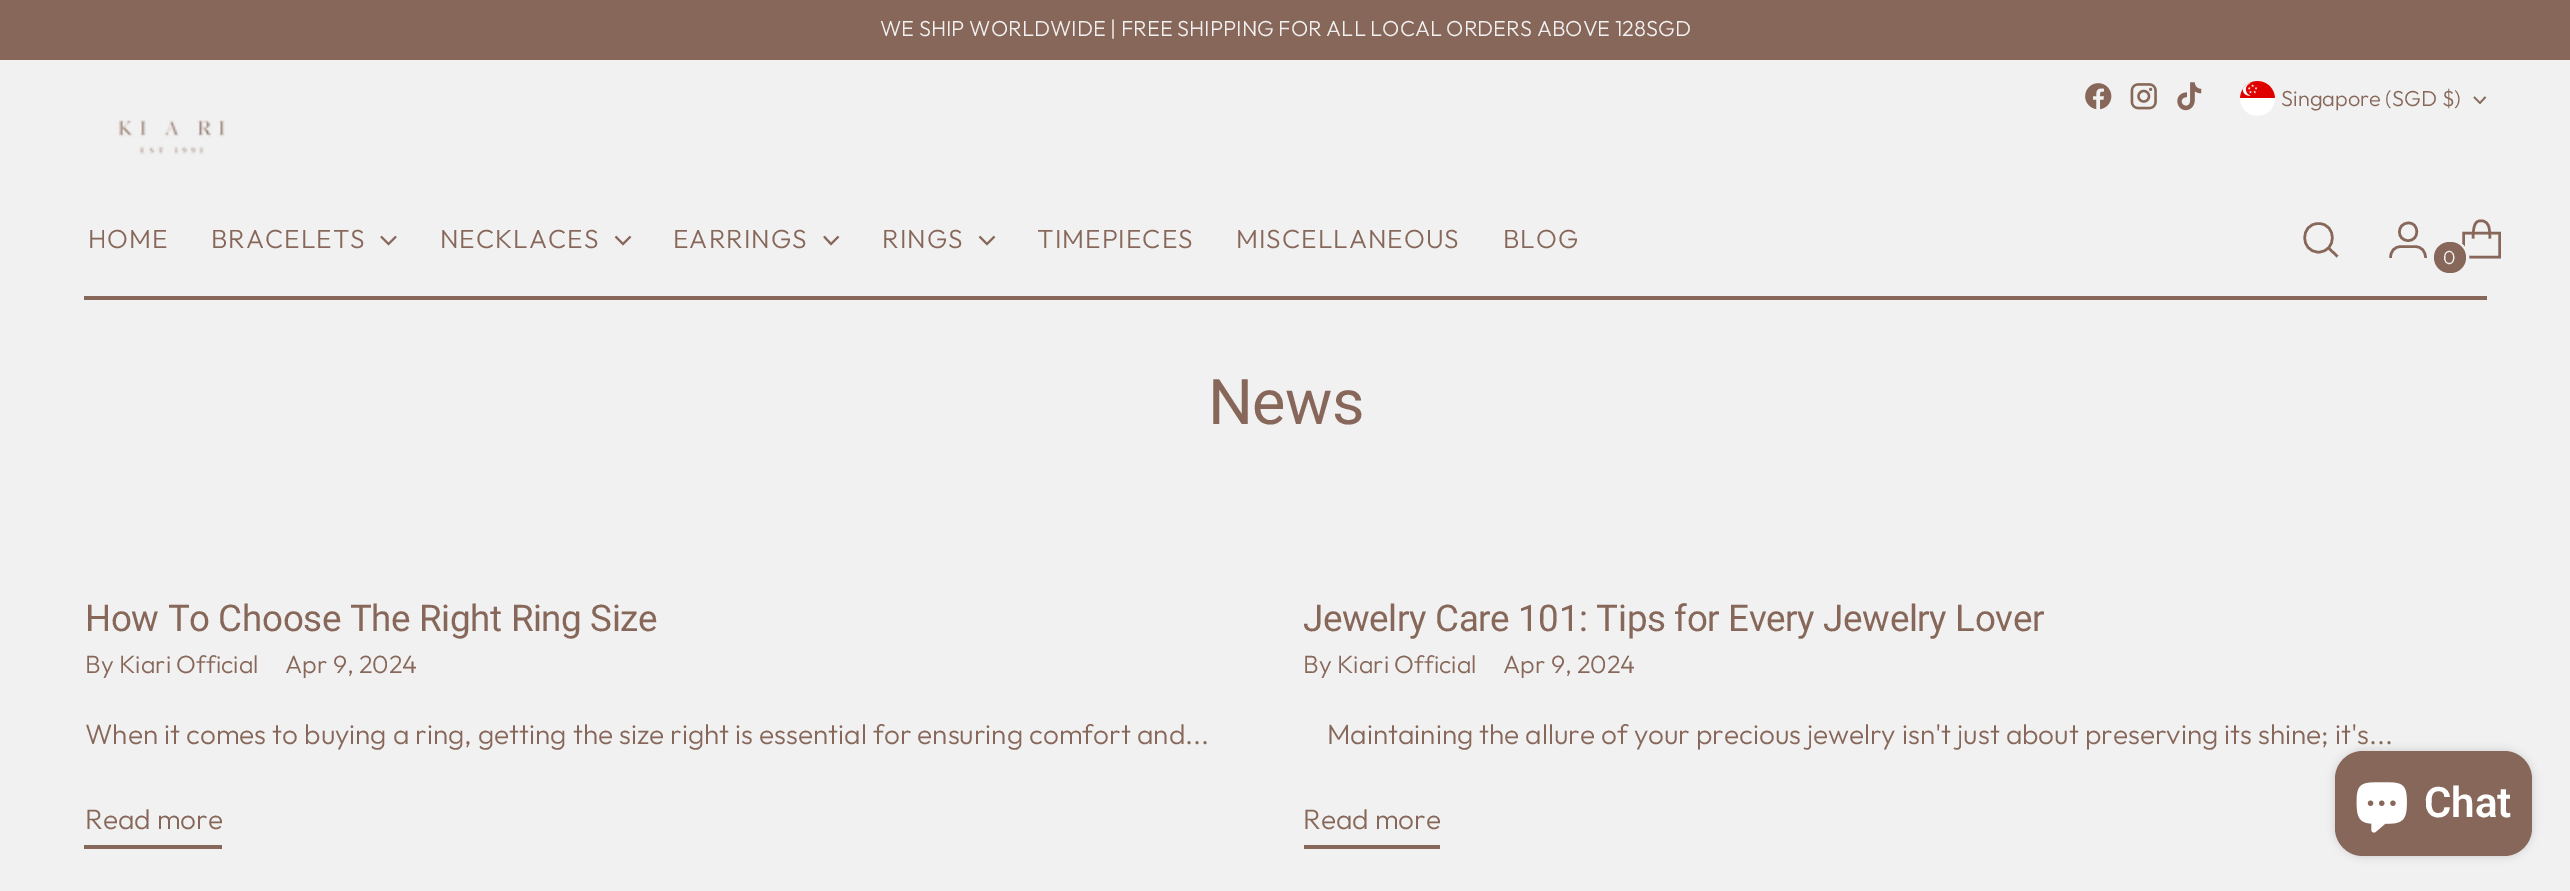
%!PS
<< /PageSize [2570 891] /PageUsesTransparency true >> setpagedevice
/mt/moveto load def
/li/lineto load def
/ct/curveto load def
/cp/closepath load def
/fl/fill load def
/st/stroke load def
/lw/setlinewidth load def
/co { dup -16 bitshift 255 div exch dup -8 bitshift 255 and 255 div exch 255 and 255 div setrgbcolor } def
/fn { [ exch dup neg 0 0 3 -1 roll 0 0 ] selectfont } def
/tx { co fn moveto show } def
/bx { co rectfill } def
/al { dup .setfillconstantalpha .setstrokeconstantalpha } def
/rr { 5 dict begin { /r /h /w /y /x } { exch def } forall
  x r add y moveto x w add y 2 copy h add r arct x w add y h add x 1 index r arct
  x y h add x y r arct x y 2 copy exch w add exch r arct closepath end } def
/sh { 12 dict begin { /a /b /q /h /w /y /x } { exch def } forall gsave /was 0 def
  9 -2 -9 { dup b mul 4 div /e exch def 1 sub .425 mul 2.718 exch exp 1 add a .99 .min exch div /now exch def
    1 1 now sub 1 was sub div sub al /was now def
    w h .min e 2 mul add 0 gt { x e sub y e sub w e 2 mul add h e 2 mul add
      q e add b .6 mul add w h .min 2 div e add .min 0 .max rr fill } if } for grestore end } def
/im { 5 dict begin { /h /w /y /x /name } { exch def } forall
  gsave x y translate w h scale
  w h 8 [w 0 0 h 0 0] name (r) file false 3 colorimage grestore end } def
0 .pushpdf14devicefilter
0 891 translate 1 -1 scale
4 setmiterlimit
0 0 2570 891 16#F1F1F1 bx
0 0 2570 60 16#876759 bx
84 296 2403 4 16#876759 bx
(media/1.raw) 2085 83 27 27 im
(media/2.raw) 2130 83 27 27 im
(media/3.raw) 2177 82 25 29 im
(media/4.raw) 2240 81 35 35 im
1.6 lw
2474 97 mt 2480 103 li 2485.5 97 li st
(media/5.raw) 118 120 107 35 im
2 lw
381 236.5 mt 388.5 244 li 396 236.5 li st
615.5 236.5 mt 623 244 li 630.5 236.5 li st
824 236.5 mt 831 244 li 838.5 236.5 li st
979.5 236.5 mt 987 244 li 994.5 236.5 li st
2.5 lw
1 setlinecap
2318.5 252 mt 2337 252 2337 223.5 2318.5 223.5 ct 2300 223.5 2300 252 2318.5 252 ct cp st
0 setlinecap
2328.5 248 mt 2337.5 256.5 li st
2408 240.5 mt 2420 241 2419.5 222 2408 223 ct 2396.5 223.5 2396.5 240.5 2408 240.5 ct cp 2390.5 258 mt 2390.5 251.5 2394 246.5 2401.5 246.5 ct 2414.5 246.5 li 2422 246.5 2425.5 251.5 2425.5 258 ct st
2 setlinejoin
2490 238.5 mt 2489.5 234.5 2490 230 2488.5 226 ct 2487.5 223.5 2486 221.5 2483 221 ct 2472.5 218.5 2473.5 232 2473 238.5 ct st
0 setlinejoin
2499.5 257 mt 2499.5 233 li 2463.5 233 li 2463.5 257 li cp st
16#F1F1F1 co
3 lw
2434.5 241.5 33 34 16.5 rr st
16#876759 co
2434 242 32 31 15.5 rr fl
84 845 138 4 16#876759 bx
1304 845 136 4 16#876759 bx
16#000000 co
2335 751 197 105 28 4.5 .15 sh
16#876759 co
2335 751 197 105 28 rr fl
(media/6.raw) 2356 782 51 51 im
(WE SHIP WORLDWIDE | FREE SHIPPING FOR ALL LOCAL ORDERS ABOVE 128SGD) 880 36 /Outfit-Light 21.75 16#F1F1F1 tx
(Singapore \(SGD $\)) 2281 106 /Outfit-Light 21.75 16#876759 tx
/Outfit-Light 26.25 fn
88 248 mt 1 0 (HOME) ashow
211 248 mt 1 0 (BRACELETS) ashow
440 248 mt 1 0 (NECKLACES) ashow
673 248 mt 1 0 (EARRINGS) ashow
882 248 mt 1 0 (RINGS) ashow
1037 248 mt 1 0 (TIMEPIECES) ashow
1236 248 mt 1 0 (MISCELLANEOUS) ashow
1503 248 mt 1 0 (BLOG) ashow
(0) 2443 264 /Outfit-Light 19 16#F1F1F1 tx
/Roboto-Regular 63 fn
16#876759 co
1208 424 mt -.5 0 (News) ashow
/Roboto-Regular 36.75 fn
85 631 mt -.35 0 (How To Choose The Right Ring Size) ashow
(By Kiari Official) 85 673 /Outfit-Light 25 16#876759 tx
(Apr 9, 2024) 285 673 /Outfit-Light 25 16#876759 tx
(When it comes to buying a ring, getting the size right is essential for ensuring comfort and...) 85 744 /Outfit-Light 28 16#876759 tx
(Read more) 85 829 /Outfit-Light 28 16#876759 tx
/Roboto-Regular 36.75 fn
1303 631 mt -.35 0 (Jewelry Care 101: Tips for Every Jewelry Lover) ashow
(By Kiari Official) 1303 673 /Outfit-Light 25 16#876759 tx
(Apr 9, 2024) 1503 673 /Outfit-Light 25 16#876759 tx
(Maintaining the allure of your precious jewelry isn't just about preserving its shine; it's...) 1327 744 /Outfit-Light 28 16#876759 tx
(Read more) 1303 829 /Outfit-Light 28 16#876759 tx
(Chat) 2424 817 /Roboto-SemiBold 42 16#FFFFFF tx
.poppdf14devicefilter showpage
